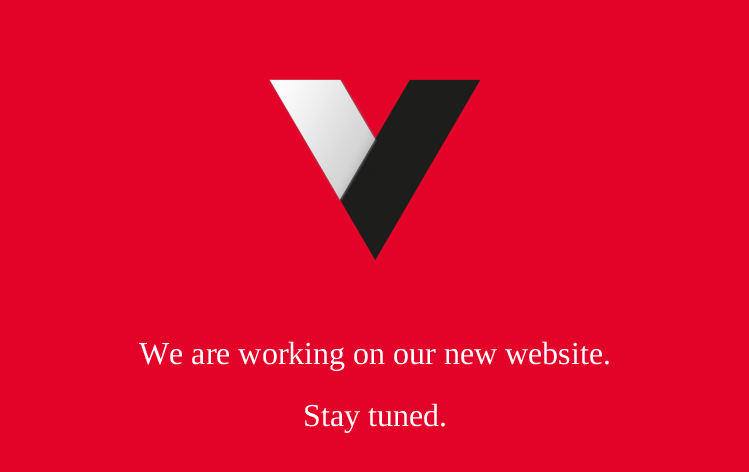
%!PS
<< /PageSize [749 472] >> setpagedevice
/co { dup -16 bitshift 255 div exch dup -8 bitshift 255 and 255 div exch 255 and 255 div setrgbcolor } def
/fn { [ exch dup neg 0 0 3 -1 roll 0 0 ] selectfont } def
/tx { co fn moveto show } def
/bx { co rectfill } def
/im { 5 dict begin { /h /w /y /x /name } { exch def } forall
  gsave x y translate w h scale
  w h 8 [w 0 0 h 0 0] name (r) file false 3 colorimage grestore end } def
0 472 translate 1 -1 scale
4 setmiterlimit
0 0 749 472 16#E30328 bx
(media/1.raw) 269 79 212 182 im
(We are working on our new website.) 139 364 /LiberationSerif-Regular 32 16#FFFFFF tx
(Stay tuned.) 303 426 /LiberationSerif-Regular 32 16#FFFFFF tx
showpage
